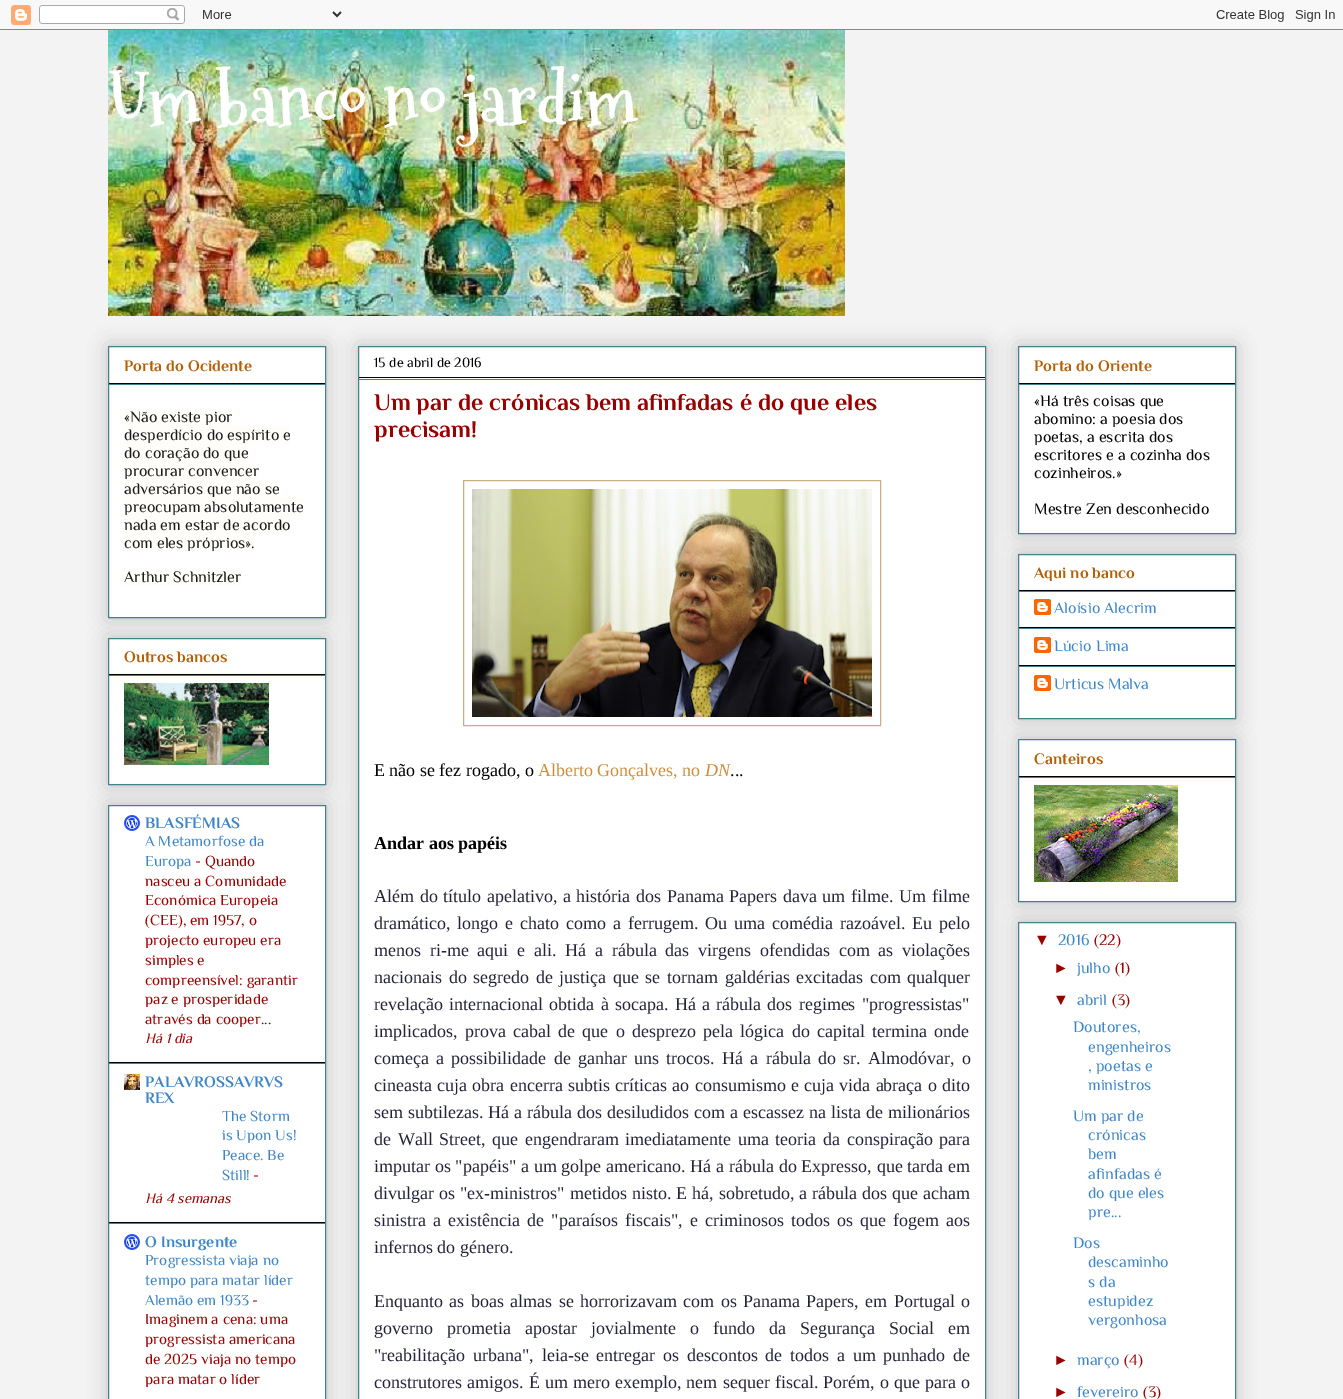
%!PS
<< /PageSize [1343 1399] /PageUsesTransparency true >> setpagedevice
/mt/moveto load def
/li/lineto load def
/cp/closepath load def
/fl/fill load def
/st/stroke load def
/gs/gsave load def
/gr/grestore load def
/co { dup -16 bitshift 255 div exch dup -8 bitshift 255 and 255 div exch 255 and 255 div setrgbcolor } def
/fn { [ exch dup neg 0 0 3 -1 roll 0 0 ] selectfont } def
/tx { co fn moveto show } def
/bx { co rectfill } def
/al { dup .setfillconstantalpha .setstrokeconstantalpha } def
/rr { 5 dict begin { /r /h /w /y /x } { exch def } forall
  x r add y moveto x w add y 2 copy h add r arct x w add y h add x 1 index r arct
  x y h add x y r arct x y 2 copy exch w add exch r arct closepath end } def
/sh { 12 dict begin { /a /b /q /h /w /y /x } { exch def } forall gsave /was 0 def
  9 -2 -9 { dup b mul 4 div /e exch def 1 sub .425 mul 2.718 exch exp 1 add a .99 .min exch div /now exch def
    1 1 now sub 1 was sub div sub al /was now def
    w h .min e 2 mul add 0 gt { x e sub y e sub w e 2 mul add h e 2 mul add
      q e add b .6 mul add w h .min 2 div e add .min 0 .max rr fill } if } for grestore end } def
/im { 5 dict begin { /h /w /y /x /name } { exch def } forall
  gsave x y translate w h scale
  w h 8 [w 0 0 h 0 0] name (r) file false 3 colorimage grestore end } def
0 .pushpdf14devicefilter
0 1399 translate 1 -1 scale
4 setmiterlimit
0 0 1343 1399 16#F3F3F3 bx
(media/1.raw) 0 0 1343 30 im
(media/2.raw) 108 30 737 286 im
16#000000 co
108 346 218 272 0 10 .2 sh
16#FFFFFF co
108.5 346.5 mt 325.5 346.5 li 325.5 617.5 li 108.5 617.5 li cp gs fl gr
16#45818E co
st
109 383 216 1 16#000000 bx
109 384 216 1 16#45818E bx
124 408 108 18 16#FEFDFA bx
124 426 166 18 16#FEFDFA bx
124 444 124 18 16#FEFDFA bx
124 462 135 18 16#FEFDFA bx
124 480 155 18 16#FEFDFA bx
124 498 179 18 16#FEFDFA bx
124 516 166 18 16#FEFDFA bx
124 534 130 18 16#FEFDFA bx
124 568 117 18 16#FEFDFA bx
16#000000 co
108 638 218 147 0 10 .2 sh
16#FFFFFF co
108.5 638.5 mt 325.5 638.5 li 325.5 784.5 li 108.5 784.5 li cp gs fl gr
16#45818E co
st
109 674 216 1 16#000000 bx
109 675 216 1 16#45818E bx
(media/3.raw) 124 683 145 82 im
16#000000 co
108 805 218 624 0 10 .2 sh
16#FFFFFF co
108.5 805.5 mt 325.5 805.5 li 325.5 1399.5 li 108.5 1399.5 li cp gs fl gr
16#45818E co
st
109 1062 216 1 16#000000 bx
(media/4.raw) 124 815 16 16 im
109 1063 216 1 16#45818E bx
109 1222 216 1 16#000000 bx
(media/5.raw) 124 1074 16 16 im
109 1223 216 1 16#45818E bx
(media/4.raw) 124 1234 16 16 im
16#000000 co
358 346 628 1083 0 10 .2 sh
16#FFFFFF co
358.5 346.5 mt 985.5 346.5 li 985.5 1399.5 li 358.5 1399.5 li cp gs fl gr
16#45818E co
st
359 377 626 1 16#000000 bx
359 379 626 1 16#45818E bx
16#CDAC82 co
463.5 480.5 417 245 rectstroke
(media/6.raw) 472 489 400 228 im
16#000000 co
1018 346 218 188 0 10 .2 sh
16#FFFFFF co
1018.5 346.5 mt 1235.5 346.5 li 1235.5 533.5 li 1018.5 533.5 li cp gs fl gr
16#45818E co
st
1019 383 216 1 16#000000 bx
1019 384 216 1 16#45818E bx
16#000000 co
1018 554 218 165 0 10 .2 sh
16#FFFFFF co
1018.5 554.5 mt 1235.5 554.5 li 1235.5 718.5 li 1018.5 718.5 li cp gs fl gr
16#45818E co
st
1019 590 216 1 16#000000 bx
1019 591 216 1 16#45818E bx
1019 627 216 1 16#000000 bx
(media/7.raw) 1034 599 17 16 im
1019 628 216 1 16#45818E bx
1019 665 216 1 16#000000 bx
(media/7.raw) 1034 637 17 16 im
1019 666 216 1 16#45818E bx
(media/7.raw) 1034 675 17 16 im
16#000000 co
1018 739 218 163 0 10 .2 sh
16#FFFFFF co
1018.5 739.5 mt 1235.5 739.5 li 1235.5 901.5 li 1018.5 901.5 li cp gs fl gr
16#45818E co
st
1019 776 216 1 16#000000 bx
1019 777 216 1 16#45818E bx
(media/8.raw) 1034 785 144 97 im
16#000000 co
1018 922 218 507 0 10 .2 sh
16#FFFFFF co
1018.5 922.5 mt 1235.5 922.5 li 1235.5 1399.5 li 1018.5 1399.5 li cp gs fl gr
16#45818E co
st
(Um banco no jardim) 108 125 /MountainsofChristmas-Bold 70 16#FFFFFF tx
(Porta do Ocidente) 124 371 /Philosopher-Bold 16 16#B45F06 tx
(«Não existe pior) 124 422 /Philosopher-Regular 16 16#191919 tx
(desperdício do espírito e) 124 440 /Philosopher-Regular 16 16#191919 tx
(do coração do que) 124 458 /Philosopher-Regular 16 16#191919 tx
(procurar convencer) 124 476 /Philosopher-Regular 16 16#191919 tx
(adversários que não se) 124 494 /Philosopher-Regular 16 16#191919 tx
(preocupam absolutamente) 124 512 /Philosopher-Regular 16 16#191919 tx
(nada em estar de acordo) 124 530 /Philosopher-Regular 16 16#191919 tx
(com eles próprios».) 124 548 /Philosopher-Regular 16 16#191919 tx
(Arthur Schnitzler) 124 582 /Philosopher-Regular 16 16#191919 tx
(Outros bancos) 124 662 /Philosopher-Bold 16 16#B45F06 tx
(BLASFÉMIAS) 145 828 /Philosopher-Bold 16 16#3D85C6 tx
(A Metamorfose da) 145 846 /Philosopher-Regular 15.25 16#3D85C6 tx
(Europa) 145 866 /Philosopher-Regular 15.25 16#3D85C6 tx
(- Quando) 195 866 /Philosopher-Regular 15.25 16#990000 tx
(nasceu a Comunidade) 145 886 /Philosopher-Regular 15.25 16#990000 tx
(Económica Europeia) 145 905 /Philosopher-Regular 15.25 16#990000 tx
(\(CEE\), em 1957, o) 145 925 /Philosopher-Regular 15.25 16#990000 tx
(projecto europeu era) 145 945 /Philosopher-Regular 15.25 16#990000 tx
(simples e) 145 965 /Philosopher-Regular 15.25 16#990000 tx
(compreensível: garantir) 145 985 /Philosopher-Regular 15.25 16#990000 tx
(paz e prosperidade) 145 1004 /Philosopher-Regular 15.25 16#990000 tx
(através da cooper...) 145 1024 /Philosopher-Regular 15.25 16#990000 tx
(Há 1 dia) 145 1043 /Philosopher-Italic 14.5 16#990000 tx
(PALAVROSSAVRVS) 145 1087 /Philosopher-Bold 16 16#3D85C6 tx
(REX) 145 1103 /Philosopher-Bold 16 16#3D85C6 tx
(The Storm) 222 1121 /Philosopher-Regular 15.25 16#3D85C6 tx
(is Upon Us!) 222 1140 /Philosopher-Regular 15.25 16#3D85C6 tx
(Peace. Be) 222 1160 /Philosopher-Regular 15.25 16#3D85C6 tx
(Still!) 222 1180 /Philosopher-Regular 15.25 16#3D85C6 tx
(-) 253 1180 /Philosopher-Regular 15.25 16#990000 tx
(Há 4 semanas) 145 1203 /Philosopher-Italic 14.5 16#990000 tx
(O Insurgente) 145 1247 /Philosopher-Bold 16 16#3D85C6 tx
(Progressista viaja no) 145 1265 /Philosopher-Regular 15.25 16#3D85C6 tx
(tempo para matar líder) 145 1285 /Philosopher-Regular 15.25 16#3D85C6 tx
(Alemão em 1933) 145 1305 /Philosopher-Regular 15.25 16#3D85C6 tx
(-) 252 1305 /Philosopher-Regular 15.25 16#990000 tx
(Imaginem a cena: uma) 145 1324 /Philosopher-Regular 15.25 16#990000 tx
(progressista americana) 145 1344 /Philosopher-Regular 15.25 16#990000 tx
(de 2025 viaja no tempo) 145 1364 /Philosopher-Regular 15.25 16#990000 tx
(para matar o líder) 145 1384 /Philosopher-Regular 15.25 16#990000 tx
(15 de abril de 2016) 374 367 /Philosopher-Regular 14 16#000000 tx
(Um par de crónicas bem afinfadas é do que eles) 374 410 /Philosopher-Bold 24 16#990000 tx
(precisam!) 374 437 /Philosopher-Bold 24 16#990000 tx
(E não se fez rogado, o) 374 776 /LiberationSerif-Regular 18 16#000000 tx
(Alberto Gonçalves, no) 538 776 /LiberationSerif-Regular 18 16#CD8C37 tx
(DN) 705 776 /LiberationSerif-Italic 18 16#CD8C37 tx
(...) 730 776 /LiberationSerif-Regular 18 16#000000 tx
(Andar aos papéis) 374 849 /LiberationSerif-Bold 18 16#000000 tx
/LiberationSerif-Regular 18 fn
16#232339 co
374 902 mt 1.1 0 32 (Além do título apelativo, a história dos Panama Papers dava um filme. Um filme) widthshow
374 929 mt 2.4 0 32 (dramático, longo e chato como a ferrugem. Ou uma comédia razoável. Eu pelo) widthshow
374 956 mt 4.25 0 32 (menos ri-me aqui e ali. Há a rábula das virgens ofendidas com as violações) widthshow
374 983 mt 2.1 0 32 (nacionais do segredo de justiça que se tornam galdérias excitadas com qualquer) widthshow
374 1010 mt 1.75 0 32 (revelação internacional obtida à socapa. Há a rábula dos regimes "progressistas") widthshow
374 1037 mt 2.75 0 32 (implicados, prova cabal de que o desprezo pela lógica do capital termina onde) widthshow
374 1064 mt 2.75 0 32 (começa a possibilidade de ganhar uns trocos. Há a rábula do sr. Almodóvar, o) widthshow
374 1091 mt .75 0 32 (cineasta cuja obra encerra subtis críticas ao consumismo e cuja vida abraça o dito) widthshow
374 1118 mt .5 0 32 (sem subtilezas. Há a rábula dos desiludidos com a escassez na lista de milionários) widthshow
374 1145 mt 2.1 0 32 (de Wall Street, que engendraram imediatamente uma teoria da conspiração para) widthshow
374 1172 mt .25 0 32 (imputar os "papéis" a um golpe americano. Há a rábula do Expresso, que tarda em) widthshow
374 1199 mt .5 0 32 (divulgar os "ex-ministros" metidos nisto. E há, sobretudo, a rábula dos que acham) widthshow
374 1226 mt 2.6 0 32 (sinistra a existência de "paraísos fiscais", e criminosos todos os que fogem aos) widthshow
(infernos do género.) 374 1253 /LiberationSerif-Regular 18 16#232339 tx
374 1307 mt 1.9 0 32 (Enquanto as boas almas se horrorizavam com os Panama Papers, em Portugal o) widthshow
374 1334 mt 9.5 0 32 (governo prometia apostar jovialmente o fundo da Segurança Social em) widthshow
374 1361 mt 3.25 0 32 ("reabilitação urbana", leia-se entregar os descontos de todos a um punhado de) widthshow
374 1388 mt .6 0 32 (construtores amigos. É um mero exemplo, nem sequer fiscal. Porém, o que para o) widthshow
(Porta do Oriente) 1034 371 /Philosopher-Bold 16 16#B45F06 tx
(«Há três coisas que) 1034 406 /Philosopher-Regular 16 16#000000 tx
(abomino: a poesia dos) 1034 424 /Philosopher-Regular 16 16#000000 tx
(poetas, a escrita dos) 1034 442 /Philosopher-Regular 16 16#000000 tx
(escritores e a cozinha dos) 1034 460 /Philosopher-Regular 16 16#000000 tx
(cozinheiros.») 1034 478 /Philosopher-Regular 16 16#000000 tx
(Mestre Zen desconhecido) 1034 514 /Philosopher-Regular 16 16#000000 tx
(Aqui no banco) 1034 578 /Philosopher-Bold 16 16#B45F06 tx
(Aloísio Alecrim) 1054 613 /Philosopher-Regular 16 16#3D85C6 tx
(Lúcio Lima) 1054 651 /Philosopher-Regular 16 16#3D85C6 tx
(Urticus Malva) 1054 689 /Philosopher-Regular 16 16#3D85C6 tx
(Canteiros) 1034 764 /Philosopher-Bold 16 16#B45F06 tx
(▼) 1034 945 /LiberationSans-Regular 16 16#990000 tx
(2016) 1058 945 /Philosopher-Regular 16 16#3D85C6 tx
(\(22\)) 1094 945 /Philosopher-Regular 16 16#990000 tx
(►) 1053 973 /LiberationSans-Regular 16 16#990000 tx
(julho) 1077 973 /Philosopher-Regular 16 16#3D85C6 tx
(\(1\)) 1115 973 /Philosopher-Regular 16 16#990000 tx
(▼) 1053 1005 /LiberationSans-Regular 16 16#990000 tx
(abril) 1077 1005 /Philosopher-Regular 16 16#3D85C6 tx
(\(3\)) 1112 1005 /Philosopher-Regular 16 16#990000 tx
(Doutores,) 1073 1032 /Philosopher-Regular 16 16#3D85C6 tx
(engenheiros) 1088 1052 /Philosopher-Regular 16 16#3D85C6 tx
(, poetas e) 1088 1071 /Philosopher-Regular 16 16#3D85C6 tx
(ministros) 1088 1090 /Philosopher-Regular 16 16#3D85C6 tx
(Um par de) 1073 1121 /Philosopher-Regular 16 16#3D85C6 tx
(crónicas) 1088 1140 /Philosopher-Regular 16 16#3D85C6 tx
(bem) 1088 1159 /Philosopher-Regular 16 16#3D85C6 tx
(afinfadas é) 1088 1179 /Philosopher-Regular 16 16#3D85C6 tx
(do que eles) 1088 1198 /Philosopher-Regular 16 16#3D85C6 tx
(pre...) 1088 1217 /Philosopher-Regular 16 16#3D85C6 tx
(Dos) 1073 1248 /Philosopher-Regular 16 16#3D85C6 tx
(descaminho) 1088 1267 /Philosopher-Regular 16 16#3D85C6 tx
(s da) 1088 1287 /Philosopher-Regular 16 16#3D85C6 tx
(estupidez) 1088 1306 /Philosopher-Regular 16 16#3D85C6 tx
(vergonhosa) 1088 1325 /Philosopher-Regular 16 16#3D85C6 tx
(►) 1053 1365 /LiberationSans-Regular 16 16#990000 tx
(março) 1077 1365 /Philosopher-Regular 16 16#3D85C6 tx
(\(4\)) 1124 1365 /Philosopher-Regular 16 16#990000 tx
(►) 1053 1397 /LiberationSans-Regular 16 16#990000 tx
(fevereiro) 1077 1397 /Philosopher-Regular 16 16#3D85C6 tx
(\(3\)) 1143 1397 /Philosopher-Regular 16 16#990000 tx
.poppdf14devicefilter showpage
